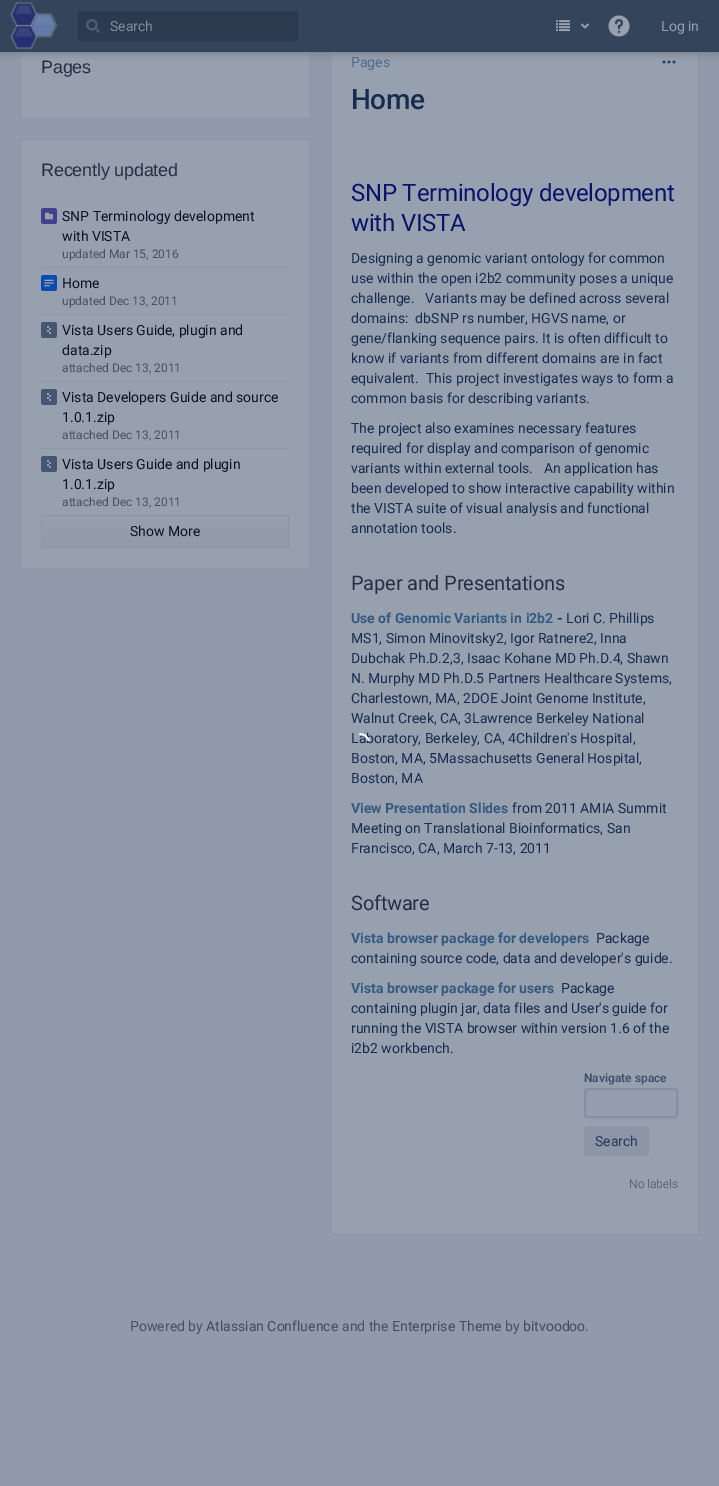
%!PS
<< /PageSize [719 1486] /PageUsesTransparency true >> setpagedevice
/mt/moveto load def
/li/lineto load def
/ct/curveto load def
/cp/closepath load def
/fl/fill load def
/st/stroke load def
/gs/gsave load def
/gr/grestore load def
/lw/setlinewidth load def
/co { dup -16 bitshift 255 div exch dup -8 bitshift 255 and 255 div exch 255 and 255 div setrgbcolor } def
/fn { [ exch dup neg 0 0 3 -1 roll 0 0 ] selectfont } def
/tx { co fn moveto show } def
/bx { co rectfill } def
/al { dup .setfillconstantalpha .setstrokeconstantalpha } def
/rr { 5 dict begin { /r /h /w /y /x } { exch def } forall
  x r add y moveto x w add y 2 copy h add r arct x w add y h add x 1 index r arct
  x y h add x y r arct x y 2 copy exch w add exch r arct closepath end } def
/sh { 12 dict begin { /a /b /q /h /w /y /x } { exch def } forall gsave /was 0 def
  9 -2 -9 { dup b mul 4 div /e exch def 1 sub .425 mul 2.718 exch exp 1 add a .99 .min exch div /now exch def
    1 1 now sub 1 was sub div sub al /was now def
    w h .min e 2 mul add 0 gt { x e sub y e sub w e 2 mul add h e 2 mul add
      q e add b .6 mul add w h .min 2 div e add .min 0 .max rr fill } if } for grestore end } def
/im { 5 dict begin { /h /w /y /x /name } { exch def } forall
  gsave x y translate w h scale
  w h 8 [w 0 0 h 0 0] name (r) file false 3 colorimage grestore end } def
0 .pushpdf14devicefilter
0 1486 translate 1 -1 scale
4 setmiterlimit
0 0 719 1486 16#919AAB bx
21 52 288 66 16#97A0AF bx
16#8D96A6 co
20.5 36.5 289 82 rectstroke
331 52 367 1182 16#97A0AF bx
16#8D96A6 co
330.5 36.5 368 1198 rectstroke
(media/10.raw) 662 60 14 4 im
16#687180 co
0 0 719 52 0 5 1 sh
0 0 719 52 16#34445B bx
(media/1.raw) 10 2 48 47 im
16#2C3A50 co
78 11 220 30 3 rr fl
(media/2.raw) 86 19 14 14 im
(media/3.raw) 556 20 14 12 im
(media/4.raw) 581 23 8 6 im
(media/5.raw) 608 15 22 22 im
16#97A0AF co
20.5 139.5 mt 309.5 139.5 li 309.5 568.5 li 20.5 568.5 li cp gs fl gr
16#8D96A6 co
st
41 267 248 1 16#8D96A6 bx
(media/6.raw) 41 208 16 16 im
41 314 248 1 16#8D96A6 bx
(media/7.raw) 41 275 16 16 im
41 381 248 1 16#8D96A6 bx
(media/8.raw) 41 322 16 16 im
41 448 248 1 16#8D96A6 bx
(media/8.raw) 41 389 16 16 im
(media/8.raw) 41 456 16 16 im
(media/9.raw) 42 516 246 31 im
16#8C95A4 co
41.5 515.5 247 32 rectstroke
16#949DAD co
585 1089 92 28 2 rr gs fl gr
16#858FA1 co
2 lw
st
16#8C96A7 co
584 1126 65 30 3 rr fl
(Search) 110 31 /Roboto-Regular 14 16#818B9C tx
(Log in) 661 31 /Roboto-Regular 14 16#97A0AF tx
/LiberationSans-Regular 18 fn
16#262F3F co
41 73 mt -.2 0 (Pages) ashow
41 176 mt -.2 0 (Recently updated) ashow
(SNP Terminology development) 62 221 /Roboto-Regular 14 16#0A1323 tx
(with VISTA) 62 241 /Roboto-Regular 14 16#0A1323 tx
(updated Mar 15, 2016) 62 258 /Roboto-Regular 12 16#485160 tx
(Home) 62 288 /Roboto-Regular 14 16#0A1323 tx
(updated Dec 13, 2011) 62 305 /Roboto-Regular 12 16#485160 tx
(Vista Users Guide, plugin and) 62 335 /Roboto-Regular 14 16#0A1323 tx
(data.zip) 62 355 /Roboto-Regular 14 16#0A1323 tx
(attached Dec 13, 2011) 62 372 /Roboto-Regular 12 16#485160 tx
(Vista Developers Guide and source) 62 402 /Roboto-Regular 14 16#0A1323 tx
(1.0.1.zip) 62 422 /Roboto-Regular 14 16#0A1323 tx
(attached Dec 13, 2011) 62 439 /Roboto-Regular 12 16#485160 tx
(Vista Users Guide and plugin) 62 469 /Roboto-Regular 14 16#0A1323 tx
(1.0.1.zip) 62 489 /Roboto-Regular 14 16#0A1323 tx
(attached Dec 13, 2011) 62 506 /Roboto-Regular 12 16#485160 tx
(Show More) 130 536 /Roboto-Regular 14 16#0A1323 tx
(Pages) 351 67 /Roboto-Regular 14 16#4B6B8C tx
/Roboto-Medium 28 fn
16#172B4D co
351 109 mt -.5 0 (Home) ashow
/Roboto-Regular 24 fn
16#0A1369 co
351 201 mt -.25 0 (SNP Terminology development) ashow
351 231 mt -.25 0 (with VISTA) ashow
(Designing a genomic variant ontology for common) 351 263 /Roboto-Regular 14 16#172B4D tx
(use within the open i2b2 community poses a unique) 351 283 /Roboto-Regular 14 16#172B4D tx
(challenge.   Variants may be defined across several) 351 303 /Roboto-Regular 14 16#172B4D tx
(domains:  dbSNP rs number, HGVS name, or) 351 323 /Roboto-Regular 14 16#172B4D tx
(gene/flanking sequence pairs. It is often difficult to) 351 343 /Roboto-Regular 14 16#172B4D tx
(know if variants from different domains are in fact) 351 363 /Roboto-Regular 14 16#172B4D tx
(equivalent.  This project investigates ways to form a) 351 383 /Roboto-Regular 14 16#172B4D tx
(common basis for describing variants.) 351 403 /Roboto-Regular 14 16#172B4D tx
(The project also examines necessary features) 351 433 /Roboto-Regular 14 16#172B4D tx
(required for display and comparison of genomic) 351 453 /Roboto-Regular 14 16#172B4D tx
(variants within external tools.   An application has) 351 473 /Roboto-Regular 14 16#172B4D tx
(been developed to show interactive capability within) 351 493 /Roboto-Regular 14 16#172B4D tx
(the VISTA suite of visual analysis and functional) 351 513 /Roboto-Regular 14 16#172B4D tx
(annotation tools.) 351 533 /Roboto-Regular 14 16#172B4D tx
/Roboto-Regular 20 fn
16#262F3F co
351 590 mt -.2 0 (Paper and Presentations) ashow
(Use of Genomic Variants in i2b2) 351 623 /Roboto-Bold 14 16#33597F tx
(-) 557 623 /Roboto-Bold 14 16#172B4D tx
(Lori C. Phillips) 566 623 /Roboto-Regular 14 16#172B4D tx
(MS1, Simon Minovitsky2, Igor Ratnere2, Inna) 351 643 /Roboto-Regular 14 16#172B4D tx
(Dubchak Ph.D.2,3, Isaac Kohane MD Ph.D.4, Shawn) 351 663 /Roboto-Regular 14 16#172B4D tx
(N. Murphy MD Ph.D.5 Partners Healthcare Systems,) 351 683 /Roboto-Regular 14 16#172B4D tx
(Charlestown, MA, 2DOE Joint Genome Institute,) 351 703 /Roboto-Regular 14 16#172B4D tx
(Walnut Creek, CA, 3Lawrence Berkeley National) 351 723 /Roboto-Regular 14 16#172B4D tx
(Laboratory, Berkeley, CA, 4Children's Hospital,) 351 743 /Roboto-Regular 14 16#172B4D tx
(Boston, MA, 5Massachusetts General Hospital,) 351 763 /Roboto-Regular 14 16#172B4D tx
(Boston, MA) 351 783 /Roboto-Regular 14 16#172B4D tx
(View Presentation Slides) 351 813 /Roboto-Bold 14 16#33597F tx
(from 2011 AMIA Summit) 512 813 /Roboto-Regular 14 16#172B4D tx
(Meeting on Translational Bioinformatics, San) 351 833 /Roboto-Regular 14 16#172B4D tx
(Francisco, CA, March 7-13, 2011) 351 853 /Roboto-Regular 14 16#172B4D tx
/Roboto-Regular 20 fn
16#262F3F co
351 910 mt -.2 0 (Software) ashow
(Vista browser package for developers) 351 943 /Roboto-Bold 14 16#33597F tx
(Package) 596 943 /Roboto-Regular 14 16#172B4D tx
(containing source code, data and developer's guide.) 351 963 /Roboto-Regular 14 16#172B4D tx
(Vista browser package for users) 351 993 /Roboto-Bold 14 16#33597F tx
(Package) 561 993 /Roboto-Regular 14 16#172B4D tx
(containing plugin jar, data files and User's guide for) 351 1013 /Roboto-Regular 14 16#172B4D tx
(running the VISTA browser within version 1.6 of the) 351 1033 /Roboto-Regular 14 16#172B4D tx
(i2b2 workbench.) 351 1053 /Roboto-Regular 14 16#172B4D tx
(Navigate space) 584 1082 /Roboto-SemiBold 12 16#3E4F6B tx
(Search) 595 1146 /Roboto-Regular 14 16#273959 tx
(No labels) 629 1188 /Roboto-Light 12 16#3E4F6B tx
(Powered by) 130 1331 /Roboto-Regular 14 16#485160 tx
(Atlassian Confluence) 206 1331 /Roboto-Regular 14 16#424B5B tx
(and the) 342 1331 /Roboto-Regular 14 16#485160 tx
(Enterprise Theme) 392 1331 /Roboto-Regular 14 16#424B5B tx
(by) 505 1331 /Roboto-Regular 14 16#485160 tx
(bitvoodoo) 523 1331 /Roboto-Regular 14 16#424B5B tx
(.) 585 1331 /Roboto-Regular 14 16#485160 tx
16#F0F0F0 co
1 setlinecap
360 734 mt 364 734 367 736.5 368.5 740 ct st
.poppdf14devicefilter showpage
